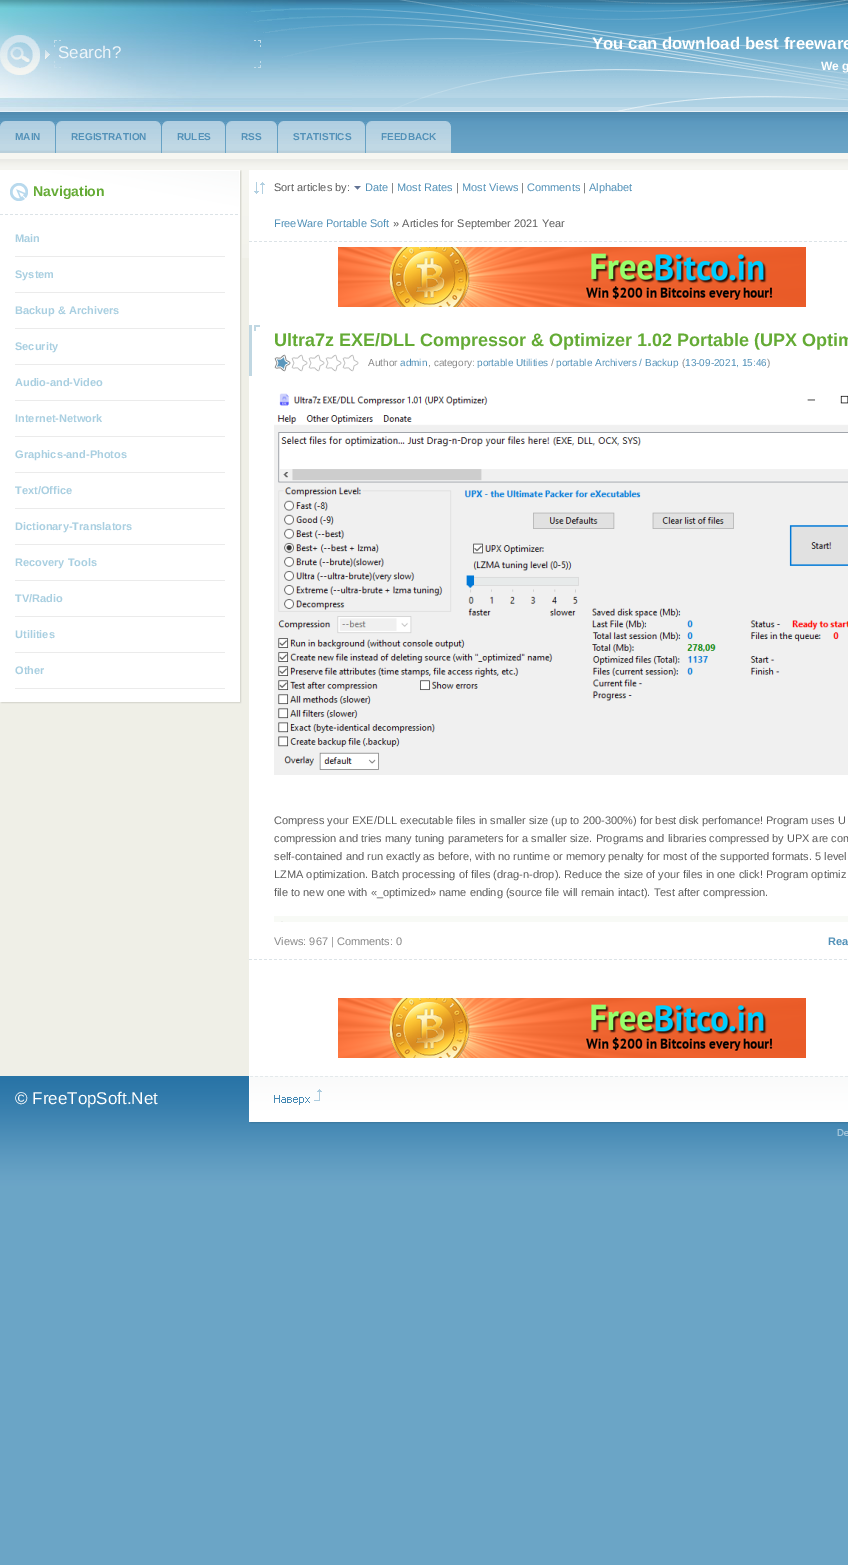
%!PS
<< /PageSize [848 1565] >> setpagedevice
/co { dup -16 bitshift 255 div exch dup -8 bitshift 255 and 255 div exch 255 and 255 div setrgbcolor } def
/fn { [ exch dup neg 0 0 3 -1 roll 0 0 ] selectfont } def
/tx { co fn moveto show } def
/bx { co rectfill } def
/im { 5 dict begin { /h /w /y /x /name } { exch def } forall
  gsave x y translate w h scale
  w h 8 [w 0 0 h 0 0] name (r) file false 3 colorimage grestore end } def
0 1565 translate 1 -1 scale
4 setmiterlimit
0 0 848 1565 16#6BA5C6 bx
(media/1.raw) 0 0 848 118 im
(media/2.raw) 0 0 352 112 im
(media/3.raw) 246 0 602 111 im
(media/4.raw) 45 40 216 28 im
(media/5.raw) 0 35 40 40 im
(media/6.raw) 55 118 793 41 im
(media/7.raw) 0 118 55 41 im
(media/8.raw) 50 121 5 5 im
(media/9.raw) 56 118 105 41 im
(media/10.raw) 156 121 5 5 im
(media/11.raw) 162 118 63 41 im
(media/8.raw) 220 121 5 5 im
(media/12.raw) 226 118 51 41 im
(media/13.raw) 271 121 6 5 im
(media/14.raw) 278 118 87 41 im
(media/8.raw) 360 121 5 5 im
(media/15.raw) 366 118 85 41 im
(media/10.raw) 446 121 5 5 im
0 258 249 818 16#EFEFE7 bx
(media/16.raw) 0 159 848 99 im
0 215 240 487 16#FFFFFF bx
(media/17.raw) 240 215 2 487 im
(media/18.raw) 0 702 242 2 im
(media/19.raw) 0 170 242 45 im
(media/20.raw) 10 183 18 18 im
15 256 210 1 16#EBEBEB bx
15 292 210 1 16#EBEBEB bx
15 328 210 1 16#EBEBEB bx
15 364 210 1 16#EBEBEB bx
15 400 210 1 16#EBEBEB bx
15 436 210 1 16#EBEBEB bx
15 472 210 1 16#EBEBEB bx
15 508 210 1 16#EBEBEB bx
15 544 210 1 16#EBEBEB bx
15 580 210 1 16#EBEBEB bx
15 616 210 1 16#EBEBEB bx
15 652 210 1 16#EBEBEB bx
15 688 210 1 16#EBEBEB bx
249 170 599 906 16#FFFFFF bx
(media/21.raw) 254 182 11 12 im
(media/22.raw) 249 241 598 1 im
(media/23.raw) 354 186 7 4 im
(media/24.raw) 338 247 468 60 im
(media/25.raw) 249 325 11 51 im
(media/26.raw) 291 354 68 18 im
(media/27.raw) 274 354 17 18 im
(media/28.raw) 274 393 574 382 im
274 916 574 6 16#F8FAF6 bx
281 921 2 1 16#EEF0EC bx
(media/22.raw) 249 959 598 1 im
(media/24.raw) 338 998 468 60 im
(media/29.raw) 251 1076 597 48 im
(media/30.raw) 0 1076 251 48 im
(media/31.raw) 274 1089 48 16 im
(media/32.raw) 0 1124 848 62 im
(media/33.raw) 837 1129 11 7 im
(Search?) 58 58 /LiberationSans-Regular 17 16#EEF5F9 tx
(You can download best freeware) 592 49 /LiberationSans-Bold 16.75 16#FFFFFF tx
(We g) 821 70 /LiberationSans-Bold 12 16#FFFFFF tx
(MAIN) 15 140 /LiberationSans-Bold 10 16#5291B8 tx
(REGISTRATION) 71 140 /LiberationSans-Bold 10 16#5291B8 tx
(RULES) 177 140 /LiberationSans-Bold 10 16#5291B8 tx
(RSS) 241 140 /LiberationSans-Bold 10 16#5291B8 tx
(STATISTICS) 293 140 /LiberationSans-Bold 10 16#5291B8 tx
(FEEDBACK) 381 140 /LiberationSans-Bold 10 16#5291B8 tx
(Navigation) 33 196 /LiberationSans-Bold 14 16#64AB35 tx
(Main) 15 242 /LiberationSans-Bold 11 16#A9CFE1 tx
(System) 15 278 /LiberationSans-Bold 11 16#A9CFE1 tx
(Backup & Archivers) 15 314 /LiberationSans-Bold 11 16#A9CFE1 tx
(Security) 15 350 /LiberationSans-Bold 11 16#A9CFE1 tx
(Audio-and-Video) 15 386 /LiberationSans-Bold 11 16#A9CFE1 tx
(Internet-Network) 15 422 /LiberationSans-Bold 11 16#A9CFE1 tx
(Graphics-and-Photos) 15 458 /LiberationSans-Bold 11 16#A9CFE1 tx
(Text/Office) 15 494 /LiberationSans-Bold 11 16#A9CFE1 tx
(Dictionary-Translators) 15 530 /LiberationSans-Bold 11 16#A9CFE1 tx
(Recovery Tools) 15 566 /LiberationSans-Bold 11 16#A9CFE1 tx
(TV/Radio) 15 602 /LiberationSans-Bold 11 16#A9CFE1 tx
(Utilities) 15 638 /LiberationSans-Bold 11 16#A9CFE1 tx
(Other) 15 674 /LiberationSans-Bold 11 16#A9CFE1 tx
(Sort articles by:) 274 191 /LiberationSans-Regular 11 16#5C5C5C tx
(Date) 365 191 /LiberationSans-Regular 11 16#5291B8 tx
(|) 391 191 /LiberationSans-Regular 11 16#5C5C5C tx
(Most Rates) 397 191 /LiberationSans-Regular 11 16#5291B8 tx
(|) 456 191 /LiberationSans-Regular 11 16#5C5C5C tx
(Most Views) 462 191 /LiberationSans-Regular 11 16#5291B8 tx
(|) 521 191 /LiberationSans-Regular 11 16#5C5C5C tx
(Comments) 527 191 /LiberationSans-Regular 11 16#5291B8 tx
(|) 583 191 /LiberationSans-Regular 11 16#5C5C5C tx
(Alphabet) 589 191 /LiberationSans-Regular 11 16#5291B8 tx
(FreeWare Portable Soft) 274 227 /LiberationSans-Regular 11 16#5291B8 tx
(» Articles for September 2021 Year) 393 227 /LiberationSans-Regular 11 16#5C5C5C tx
(Ultra7z EXE/DLL Compressor & Optimizer 1.02 Portable \(UPX Optim) 274 346 /LiberationSans-Bold 18 16#64AB35 tx
(Author) 368 366 /LiberationSans-Regular 10 16#898989 tx
(admin) 400 366 /LiberationSans-Regular 10 16#5291B8 tx
(, category:) 428 366 /LiberationSans-Regular 10 16#898989 tx
(portable Utilities) 477 366 /LiberationSans-Regular 10 16#5291B8 tx
(/) 551 366 /LiberationSans-Regular 10 16#898989 tx
(portable Archivers / Backup) 556 366 /LiberationSans-Regular 10 16#5291B8 tx
(\() 682 366 /LiberationSans-Regular 10 16#898989 tx
(13-09-2021, 15:46) 685 366 /LiberationSans-Regular 10 16#5291B8 tx
(\)) 767 366 /LiberationSans-Regular 10 16#898989 tx
(Compress your EXE/DLL executable files in smaller size \(up to 200-300%\) for best disk perfomance! Program uses U) 274 824 /LiberationSans-Regular 11 16#5C5C5C tx
(compression and tries many tuning parameters for a smaller size. Programs and libraries compressed by UPX are com) 274 842 /LiberationSans-Regular 11 16#5C5C5C tx
(self-contained and run exactly as before, with no runtime or memory penalty for most of the supported formats. 5 level) 274 860 /LiberationSans-Regular 11 16#5C5C5C tx
(LZMA optimization. Batch processing of files \(drag-n-drop\). Reduce the size of your files in one click! Program optimiz) 274 878 /LiberationSans-Regular 11 16#5C5C5C tx
(file to new one with «_optimized» name ending \(source file will remain intact\). Test after compression.) 274 896 /LiberationSans-Regular 11 16#5C5C5C tx
(Views: 967 | Comments: 0) 274 945 /LiberationSans-Regular 11 16#898989 tx
(Rea) 828 945 /LiberationSans-Bold 11 16#5291B8 tx
(© FreeTopSoft.Net) 15 1104 /LiberationSans-Regular 17 16#FFFFFF tx
showpage
